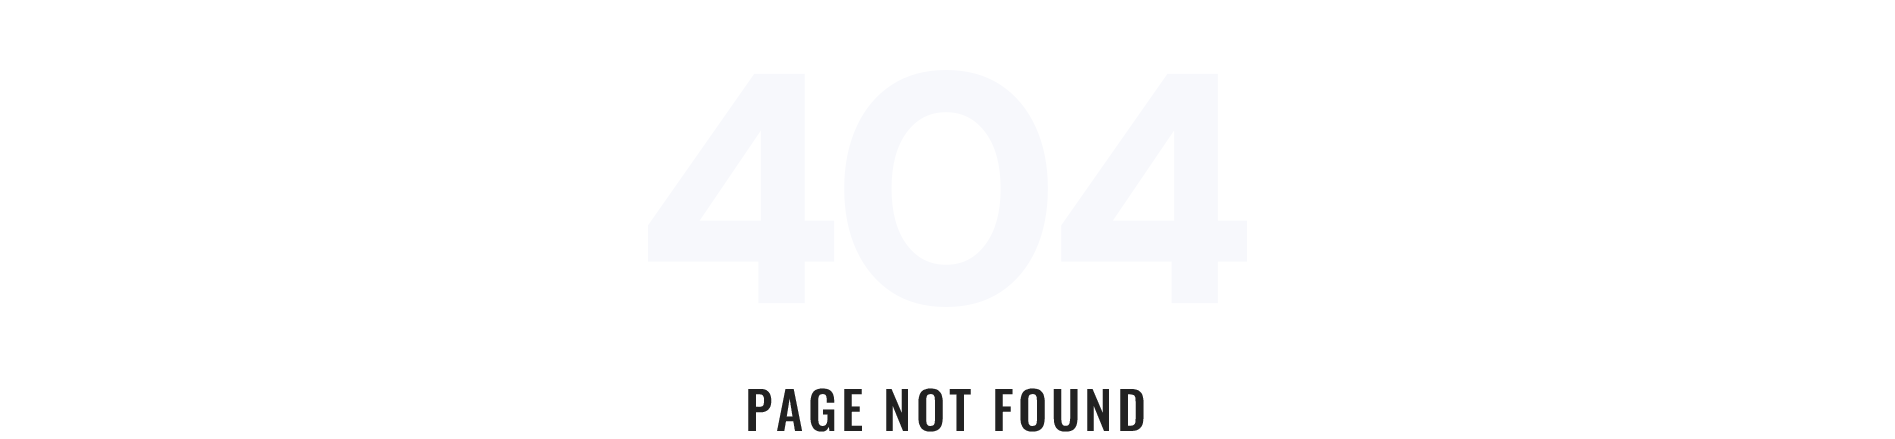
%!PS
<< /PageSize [1895 439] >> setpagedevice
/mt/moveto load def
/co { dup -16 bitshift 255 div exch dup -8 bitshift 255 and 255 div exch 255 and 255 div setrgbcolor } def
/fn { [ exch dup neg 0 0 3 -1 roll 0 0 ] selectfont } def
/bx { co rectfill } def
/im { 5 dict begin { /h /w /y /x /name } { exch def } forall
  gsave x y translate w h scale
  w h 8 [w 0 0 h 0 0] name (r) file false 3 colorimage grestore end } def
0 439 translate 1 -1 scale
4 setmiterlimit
0 0 1895 439 16#FFFFFF bx
(media/1.raw) 648 70 599 237 im
/Oswald-Medium 52 fn
16#222222 co
745 431 mt 4 0 (PAGE NOT FOUND) ashow
showpage
